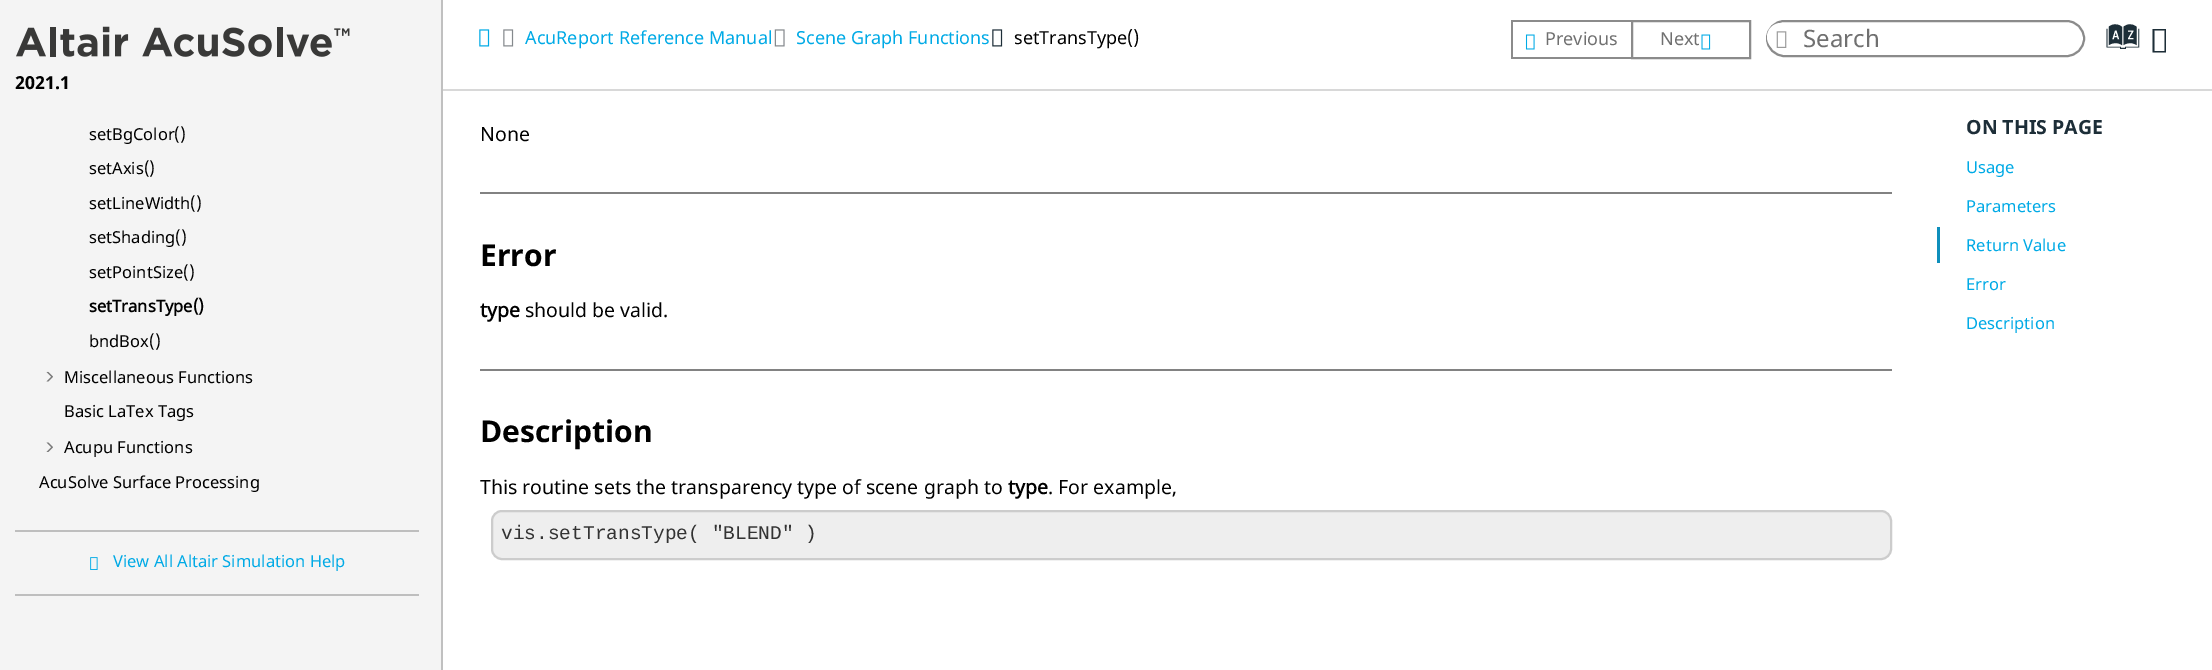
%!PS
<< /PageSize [2212 670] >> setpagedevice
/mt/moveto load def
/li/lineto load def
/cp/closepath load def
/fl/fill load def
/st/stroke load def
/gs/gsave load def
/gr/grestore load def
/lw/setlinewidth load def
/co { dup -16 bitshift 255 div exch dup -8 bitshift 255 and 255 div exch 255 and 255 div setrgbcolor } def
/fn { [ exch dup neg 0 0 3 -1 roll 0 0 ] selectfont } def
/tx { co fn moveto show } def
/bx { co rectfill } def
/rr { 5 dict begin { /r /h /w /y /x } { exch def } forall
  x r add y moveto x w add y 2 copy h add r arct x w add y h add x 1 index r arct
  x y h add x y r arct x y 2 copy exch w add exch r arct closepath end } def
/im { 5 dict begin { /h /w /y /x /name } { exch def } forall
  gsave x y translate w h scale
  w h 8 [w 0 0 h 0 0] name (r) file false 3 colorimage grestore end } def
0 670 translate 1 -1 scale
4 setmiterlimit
0 0 2212 670 16#FFFFFF bx
0 0 441 670 16#F4F4F4 bx
441 0 2 670 16#C0C0C0 bx
(media/1.raw) 16 26 334 31 im
(media/2.raw) 46 371 7 11 im
(media/3.raw) 46 442 7 10 im
15 530 404 2 16#BEBEBE bx
15 594 404 2 16#BEBEBE bx
(media/4.raw) 90 557 8 13 im
443 89 1769 2 16#D8D8D8 bx
(media/5.raw) 479 29 11 18 im
(media/6.raw) 503 29 11 18 im
(media/7.raw) 774 29 11 18 im
(media/8.raw) 992 29 11 18 im
1511 20 120 2 16#8B8B8B bx
1511 57 120 2 16#8B8B8B bx
1511 20 2 39 16#8B8B8B bx
(media/9.raw) 1525 34 10 16 im
2 lw
1632 21 118 37 rectstroke
(media/10.raw) 1701 34 10 16 im
1767 21 317 35 17.5 rr st
16#FFFFFF co
1767 23 30 28 14 rr fl
(media/11.raw) 1776 31 11 17 im
16#1D2E38 co
2152.5 52.5 mt 2152.5 29 li 2166 29 li 2166 52.5 li cp 2154.5 51 mt 2164.5 51 li 2164.5 30.5 li 2154.5 30.5 li cp fl
480 192 1412 2 16#828282 bx
480 369 1412 2 16#828282 bx
16#EEEEEE co
492 511 1399 48 10 rr gs fl gr
16#CCCCCC co
st
1937 227 3 36 16#0E8FBC bx
(2021.1) 15 89 /NotoSans-Bold 18 16#000000 tx
(setBgColor\(\)) 89 140 /NotoSans-Regular 16.5 16#000000 tx
(setAxis\(\)) 89 174 /NotoSans-Regular 16.5 16#000000 tx
(setLineWidth\(\)) 89 209 /NotoSans-Regular 16.5 16#000000 tx
(setShading\(\)) 89 243 /NotoSans-Regular 16.5 16#000000 tx
(setPointSize\(\)) 89 278 /NotoSans-Regular 16.5 16#000000 tx
(setTransType\(\)) 89 312 /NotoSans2-Bold 16.5 16#000000 tx
(bndBox\(\)) 89 347 /NotoSans-Regular 16.5 16#000000 tx
(Miscellaneous Functions) 64 383 /NotoSans-Regular 16.5 16#000000 tx
(Basic LaTex Tags) 64 417 /NotoSans-Regular 16.5 16#000000 tx
(Acupu Functions) 64 453 /NotoSans-Regular 16.5 16#000000 tx
(AcuSolve Surface Processing) 39 488 /NotoSans-Regular 16.5 16#000000 tx
(View All Altair Simulation Help) 113 567 /NotoSans-Regular 16.5 16#00AAE6 tx
(AcuReport) 525 44 /NotoSans-Regular 18 16#00AAE6 tx
(Reference Manual) 619 44 /NotoSans-Regular 18 16#00AAE6 tx
(Scene Graph Functions) 796 44 /NotoSans-Regular 18 16#00AAE6 tx
(setTransType\(\)) 1014 44 /NotoSans-Regular 18 16#000000 tx
(Previous) 1545 45 /NotoSans-Regular 18 16#707070 tx
(Next) 1660 45 /NotoSans-Regular 18 16#707070 tx
(Search) 1803 47 /NotoSans-Regular 24 16#707070 tx
(a) 2110 53 /Oxygen-Regular 35 16#1D2E38 tx
(None) 480 141 /NotoSans-Regular 19.5 16#000000 tx
(Error) 480 266 /NotoSans-Bold 30 16#000000 tx
(type) 480 317 /NotoSans2-Bold 19.5 16#000000 tx
(should be valid.) 525 317 /NotoSans-Regular 19.5 16#000000 tx
(Description) 480 442 /NotoSans-Bold 30 16#000000 tx
(This routine sets the transparency type of scene graph to) 480 494 /NotoSans-Regular 19.5 16#000000 tx
(type) 1008 494 /NotoSans2-Bold 19.5 16#000000 tx
(. For example,) 1048 494 /NotoSans-Regular 19.5 16#000000 tx
(vis.setTransType\( "BLEND" \)) 501 539 /LiberationMono-Regular 19.5 16#333333 tx
(ON THIS PAGE) 1966 134 /NotoSans-Bold 19.5 16#1D2E38 tx
(Usage) 1966 173 /NotoSans-Regular 16.5 16#00AAE6 tx
(Parameters) 1966 212 /NotoSans-Regular 16.5 16#00AAE6 tx
(Return Value) 1966 251 /NotoSans-Regular 16.5 16#00AAE6 tx
(Error) 1966 290 /NotoSans-Regular 16.5 16#00AAE6 tx
(Description) 1966 329 /NotoSans-Regular 16.5 16#00AAE6 tx
showpage
